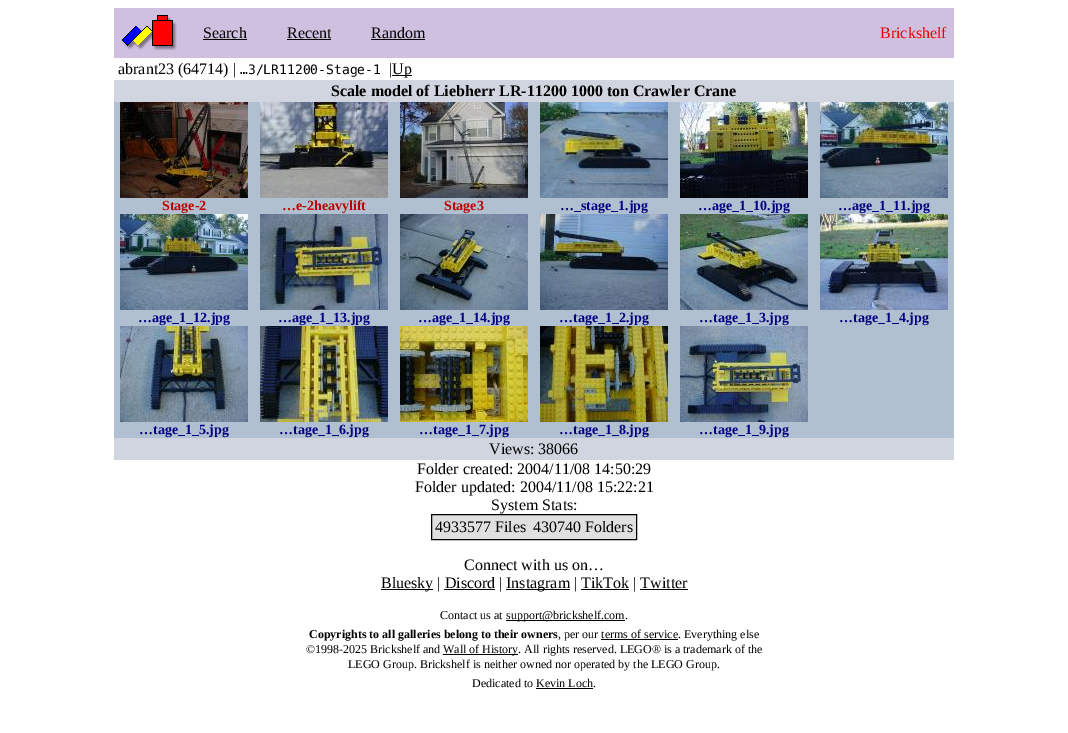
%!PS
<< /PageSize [1068 733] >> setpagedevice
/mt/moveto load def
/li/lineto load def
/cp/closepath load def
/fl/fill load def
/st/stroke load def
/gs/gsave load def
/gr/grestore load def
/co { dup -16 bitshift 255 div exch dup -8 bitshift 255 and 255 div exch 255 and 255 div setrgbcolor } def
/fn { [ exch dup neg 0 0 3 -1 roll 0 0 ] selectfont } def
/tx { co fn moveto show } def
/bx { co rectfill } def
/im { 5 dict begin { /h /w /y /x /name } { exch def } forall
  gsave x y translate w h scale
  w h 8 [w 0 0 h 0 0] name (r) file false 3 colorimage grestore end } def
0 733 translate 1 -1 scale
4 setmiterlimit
0 0 1068 733 16#FFFFFF bx
114 8 840 50 16#D0C0E0 bx
(media/1.raw) 122 15 55 36 im
203 39 44 1 16#000000 bx
287 39 44 1 16#000000 bx
371 39 54 1 16#000000 bx
392 75 20 1 16#000000 bx
114 80 840 22 16#D0D5DF bx
114 102 840 336 16#B0C0D0 bx
(media/2.raw) 120 102 128 96 im
(media/3.raw) 260 102 128 96 im
(media/4.raw) 400 102 128 96 im
(media/5.raw) 540 102 128 96 im
(media/6.raw) 680 102 128 96 im
(media/7.raw) 820 102 128 96 im
(media/8.raw) 120 214 128 96 im
(media/9.raw) 260 214 128 96 im
(media/10.raw) 400 214 128 96 im
(media/11.raw) 540 214 128 96 im
(media/12.raw) 680 214 128 96 im
(media/13.raw) 820 214 128 96 im
(media/14.raw) 120 326 128 96 im
(media/15.raw) 260 326 128 96 im
(media/16.raw) 400 326 128 96 im
(media/17.raw) 540 326 128 96 im
(media/18.raw) 680 326 128 96 im
114 438 840 22 16#D0D5DF bx
16#E0E0E0 co
431.5 514.5 mt 636.5 514.5 li 636.5 539.5 li 431.5 539.5 li cp gs fl gr
16#000000 co
st
381 589 52 1 16#000000 bx
506 589 64 1 16#000000 bx
444 589 51 1 16#000000 bx
581 589 48 1 16#000000 bx
640 589 48 1 16#000000 bx
506 620 119 1 16#000000 bx
601 639 77 1 16#000000 bx
443 654 75 1 16#000000 bx
536 688 57 1 16#000000 bx
(Search) 203 38 /LiberationSerif-Regular 16 16#000000 tx
(Recent) 287 38 /LiberationSerif-Regular 16 16#000000 tx
(Random) 371 38 /LiberationSerif-Regular 16 16#000000 tx
(Brickshelf) 880 38 /LiberationSerif-Regular 16 16#EF0000 tx
(abrant23 \(64714\) |) 118 74 /LiberationSerif-Regular 16 16#000000 tx
(…3/LR11200-Stage-1) 240 74 /DejaVuSansMono-Regular 13 16#000000 tx
(|) 389 74 /LiberationSerif-Regular 16 16#000000 tx
(Up) 392 74 /LiberationSerif-Regular 16 16#000000 tx
(Scale model of Liebherr LR-11200 1000 ton Crawler Crane) 331 96 /LiberationSerif-Bold 16 16#000000 tx
(Stage-2) 162 210 /LiberationSerif-Bold 14 16#C00000 tx
(…e-2heavylift) 282 210 /LiberationSerif-Bold 14 16#C00000 tx
(Stage3) 444 210 /LiberationSerif-Bold 14 16#C00000 tx
(…_stage_1.jpg) 560 210 /LiberationSerif-Bold 14 16#000080 tx
(…age_1_10.jpg) 698 210 /LiberationSerif-Bold 14 16#000080 tx
(…age_1_11.jpg) 838 210 /LiberationSerif-Bold 14 16#000080 tx
(…age_1_12.jpg) 138 322 /LiberationSerif-Bold 14 16#000080 tx
(…age_1_13.jpg) 278 322 /LiberationSerif-Bold 14 16#000080 tx
(…age_1_14.jpg) 418 322 /LiberationSerif-Bold 14 16#000080 tx
(…tage_1_2.jpg) 559 322 /LiberationSerif-Bold 14 16#000080 tx
(…tage_1_3.jpg) 699 322 /LiberationSerif-Bold 14 16#000080 tx
(…tage_1_4.jpg) 839 322 /LiberationSerif-Bold 14 16#000080 tx
(…tage_1_5.jpg) 139 434 /LiberationSerif-Bold 14 16#000080 tx
(…tage_1_6.jpg) 279 434 /LiberationSerif-Bold 14 16#000080 tx
(…tage_1_7.jpg) 419 434 /LiberationSerif-Bold 14 16#000080 tx
(…tage_1_8.jpg) 559 434 /LiberationSerif-Bold 14 16#000080 tx
(…tage_1_9.jpg) 699 434 /LiberationSerif-Bold 14 16#000080 tx
(Views: 38066) 489 454 /LiberationSerif-Regular 16 16#000000 tx
(Folder created: 2004/11/08 14:50:29) 417 474 /LiberationSerif-Regular 16 16#000000 tx
(Folder updated: 2004/11/08 15:22:21) 415 492 /LiberationSerif-Regular 16 16#000000 tx
(System Stats:) 491 510 /LiberationSerif-Regular 16 16#000000 tx
(4933577 Files) 435 532 /LiberationSerif-Regular 16 16#000000 tx
(430740 Folders) 533 532 /LiberationSerif-Regular 16 16#000000 tx
(Connect with us on…) 464 570 /LiberationSerif-Regular 16 16#000000 tx
(Bluesky | Discord |) 381 588 /LiberationSerif-Regular 16 16#000000 tx
(Instagram | TikTok | Twitter) 506 588 /LiberationSerif-Regular 16 16#000000 tx
(Contact us at) 440 619 /LiberationSerif-Regular 12 16#000000 tx
(support@brickshelf.com.) 506 619 /LiberationSerif-Regular 12 16#000000 tx
(Copyrights to all galleries belong to their owners) 309 638 /LiberationSerif-Bold 12 16#000000 tx
(, per our terms of service. Everything else) 558 638 /LiberationSerif-Regular 12 16#000000 tx
(©1998-2025 Brickshelf and) 306 653 /LiberationSerif-Regular 12 16#000000 tx
(Wall of History. All rights reserved. LEGO® is a trademark of the) 443 653 /LiberationSerif-Regular 12 16#000000 tx
(LEGO Group. Brickshelf is neither owned nor operated by the LEGO Group.) 348 668 /LiberationSerif-Regular 12 16#000000 tx
(Dedicated to Kevin Loch.) 472 687 /LiberationSerif-Regular 12 16#000000 tx
showpage
